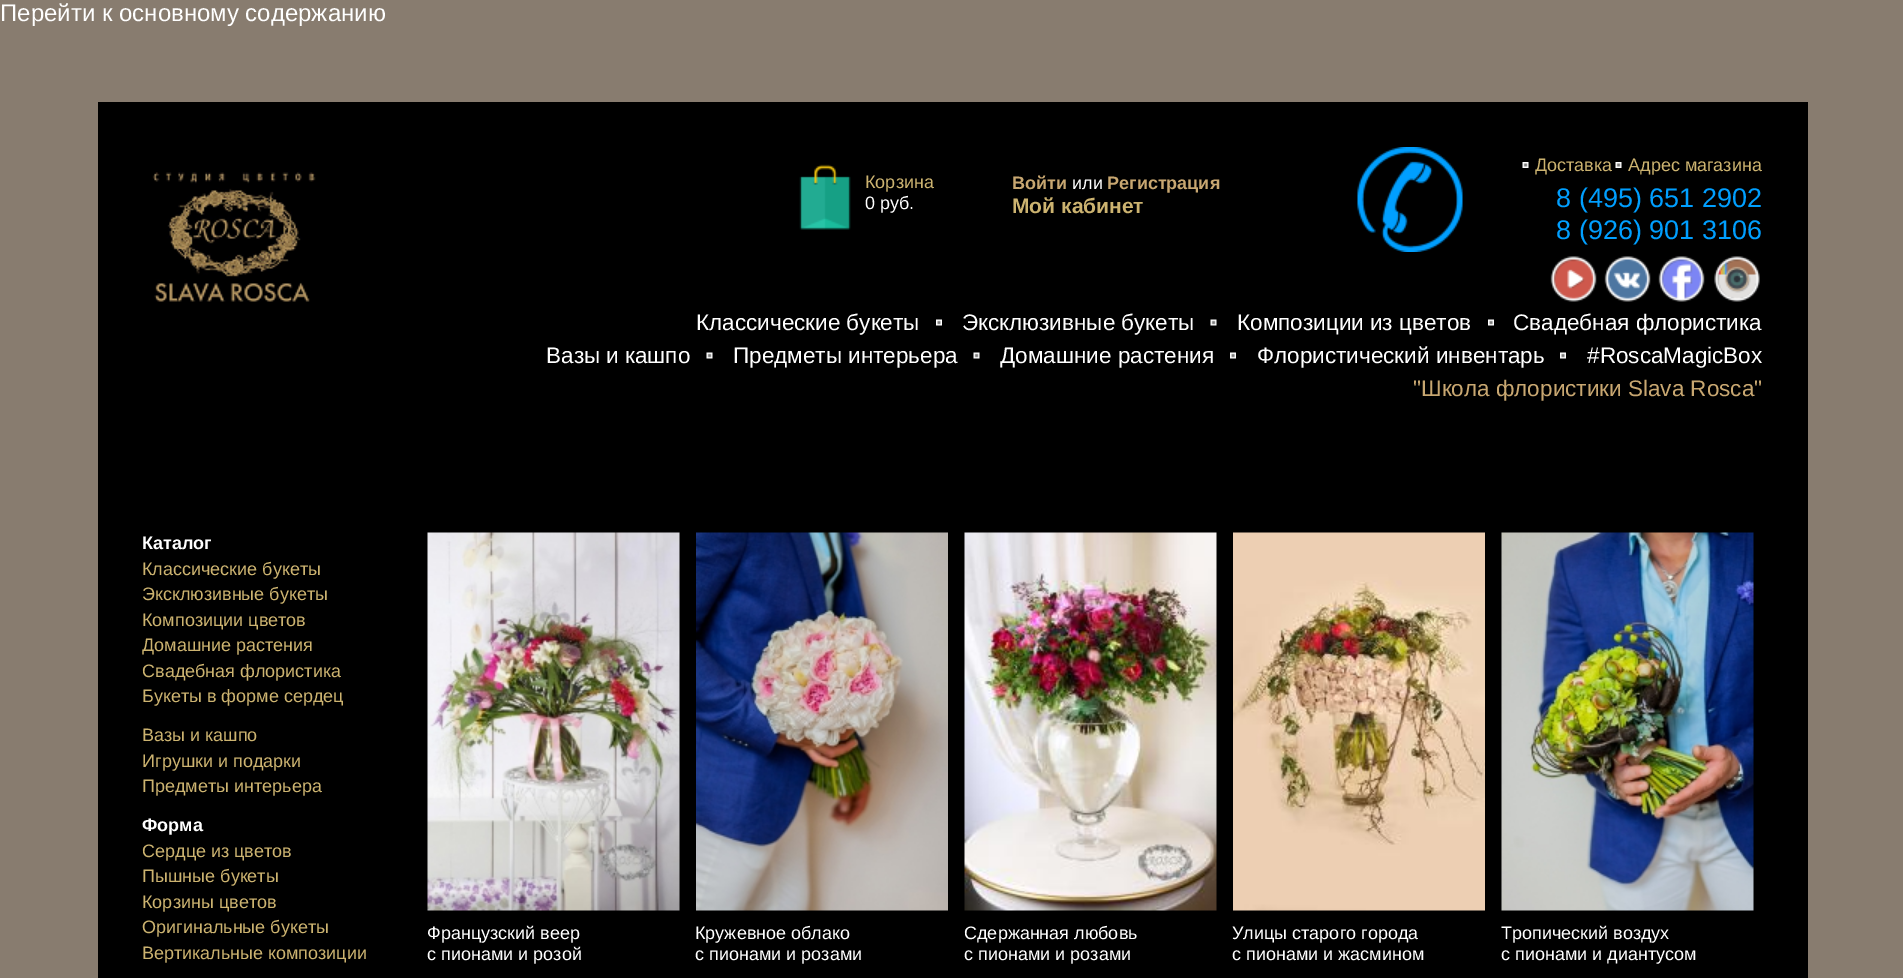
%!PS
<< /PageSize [1903 978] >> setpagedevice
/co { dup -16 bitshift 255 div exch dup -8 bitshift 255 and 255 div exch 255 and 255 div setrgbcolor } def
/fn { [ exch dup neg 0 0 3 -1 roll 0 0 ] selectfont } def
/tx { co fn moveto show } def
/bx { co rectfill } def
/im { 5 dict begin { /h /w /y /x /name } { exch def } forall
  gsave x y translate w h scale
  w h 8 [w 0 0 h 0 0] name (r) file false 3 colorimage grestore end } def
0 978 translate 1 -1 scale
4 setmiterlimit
0 0 1903 978 16#887C6F bx
98 102 1710 876 16#000000 bx
(media/1.raw) 152 170 164 132 im
(media/2.raw) 799 164 52 66 im
(media/3.raw) 1357 147 106 105 im
(media/4.raw) 1522 162 7 6 im
(media/4.raw) 1615 162 7 6 im
(media/5.raw) 1550 256 47 46 im
(media/6.raw) 1604 256 47 46 im
(media/7.raw) 1658 256 47 46 im
(media/8.raw) 1714 256 46 46 im
(media/9.raw) 936 319 6 7 im
(media/10.raw) 1210 319 7 7 im
(media/11.raw) 1488 319 6 7 im
(media/10.raw) 706 352 7 7 im
(media/10.raw) 973 352 7 7 im
(media/11.raw) 1230 352 6 7 im
(media/9.raw) 1560 352 6 7 im
(media/12.raw) 427 532 253 379 im
(media/13.raw) 696 532 252 379 im
(media/14.raw) 964 532 253 379 im
(media/15.raw) 1233 532 252 379 im
(media/16.raw) 1501 532 253 379 im
(Перейти к основному содержанию) 0 21 /LiberationSans-Regular 24 16#FFFFFF tx
(Корзина) 865 188 /LiberationSans-Regular 18 16#CCB370 tx
(0 руб.) 865 209 /LiberationSans-Regular 18 16#FFFFFF tx
(Войти) 1012 189 /LiberationSans-Bold 18 16#C8A771 tx
(или) 1072 189 /LiberationSans-Regular 18 16#FFFFFF tx
(Регистрация) 1107 189 /LiberationSans-Bold 18 16#C8A771 tx
(Мой кабинет) 1012 213 /LiberationSans-Bold 21 16#CCB370 tx
(Доставка) 1535 171 /LiberationSans-Regular 18 16#CCB370 tx
(Адрес магазина) 1628 171 /LiberationSans-Regular 18 16#CCB370 tx
(8 \(495\) 651 2902) 1556 207 /LiberationSans-Regular 27 16#009FFF tx
(8 \(926\) 901 3106) 1556 239 /LiberationSans-Regular 27 16#009FFF tx
(Классические букеты) 696 330 /LiberationSans-Regular 22.5 16#FFFFFF tx
(Эксклюзивные букеты) 962 330 /LiberationSans-Regular 22.5 16#FFFFFF tx
(Композиции из цветов) 1237 330 /LiberationSans-Regular 22.5 16#FFFFFF tx
(Свадебная флористика) 1513 330 /LiberationSans-Regular 22.5 16#FFFFFF tx
(Вазы и кашпо) 546 363 /LiberationSans-Regular 22.5 16#FFFFFF tx
(Предметы интерьера) 733 363 /LiberationSans-Regular 22.5 16#FFFFFF tx
(Домашние растения) 1000 363 /LiberationSans-Regular 22.5 16#FFFFFF tx
(Флористический инвентарь) 1257 363 /LiberationSans-Regular 22.5 16#FFFFFF tx
(#RoscaMagicBox) 1587 363 /LiberationSans-Regular 22.5 16#FFFFFF tx
("Школа флористики Slava Rosca") 1413 396 /LiberationSans-Regular 22.5 16#C8A771 tx
(Каталог) 142 549 /LiberationSans-Bold 18 16#FFFFFF tx
(Классические букеты) 142 575 /LiberationSans-Regular 18 16#CCB370 tx
(Эксклюзивные букеты) 142 600 /LiberationSans-Regular 18 16#CCB370 tx
(Композиции цветов) 142 626 /LiberationSans-Regular 18 16#CCB370 tx
(Домашние растения) 142 651 /LiberationSans-Regular 18 16#CCB370 tx
(Свадебная флористика) 142 677 /LiberationSans-Regular 18 16#CCB370 tx
(Букеты в форме сердец) 142 702 /LiberationSans-Regular 18 16#CCB370 tx
(Вазы и кашпо) 142 741 /LiberationSans-Regular 18 16#CCB370 tx
(Игрушки и подарки) 142 767 /LiberationSans-Regular 18 16#CCB370 tx
(Предметы интерьера) 142 792 /LiberationSans-Regular 18 16#CCB370 tx
(Форма) 142 831 /LiberationSans-Bold 18 16#FFFFFF tx
(Сердце из цветов) 142 857 /LiberationSans-Regular 18 16#CCB370 tx
(Пышные букеты) 142 882 /LiberationSans-Regular 18 16#CCB370 tx
(Корзины цветов) 142 908 /LiberationSans-Regular 18 16#CCB370 tx
(Оригинальные букеты) 142 933 /LiberationSans-Regular 18 16#CCB370 tx
(Вертикальные композиции) 142 959 /LiberationSans-Regular 18 16#CCB370 tx
(Французский веер) 427 939 /LiberationSans-Regular 18 16#FFFFFF tx
(с пионами и розой) 427 960 /LiberationSans-Regular 18 16#FFFFFF tx
(Кружевное облако) 695 939 /LiberationSans-Regular 18 16#FFFFFF tx
(с пионами и розами) 695 960 /LiberationSans-Regular 18 16#FFFFFF tx
(Сдержанная любовь) 964 939 /LiberationSans-Regular 18 16#FFFFFF tx
(с пионами и розами) 964 960 /LiberationSans-Regular 18 16#FFFFFF tx
(Улицы старого города) 1232 939 /LiberationSans-Regular 18 16#FFFFFF tx
(с пионами и жасмином) 1232 960 /LiberationSans-Regular 18 16#FFFFFF tx
(Тропический воздух) 1501 939 /LiberationSans-Regular 18 16#FFFFFF tx
(с пионами и диантусом) 1501 960 /LiberationSans-Regular 18 16#FFFFFF tx
showpage
